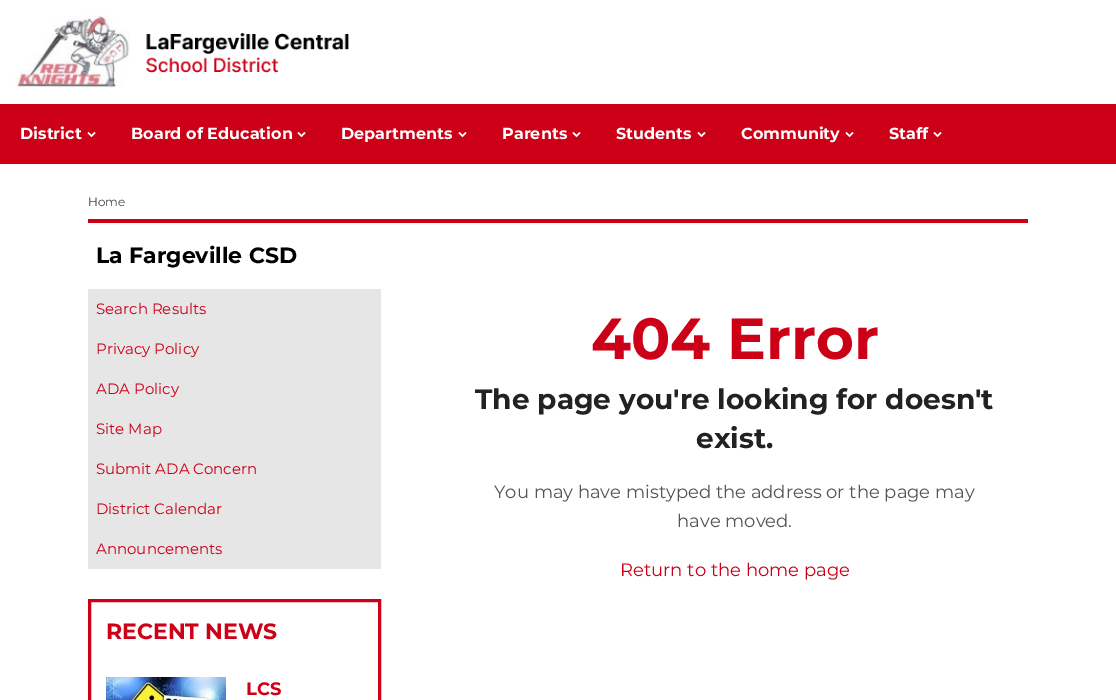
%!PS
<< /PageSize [1116 700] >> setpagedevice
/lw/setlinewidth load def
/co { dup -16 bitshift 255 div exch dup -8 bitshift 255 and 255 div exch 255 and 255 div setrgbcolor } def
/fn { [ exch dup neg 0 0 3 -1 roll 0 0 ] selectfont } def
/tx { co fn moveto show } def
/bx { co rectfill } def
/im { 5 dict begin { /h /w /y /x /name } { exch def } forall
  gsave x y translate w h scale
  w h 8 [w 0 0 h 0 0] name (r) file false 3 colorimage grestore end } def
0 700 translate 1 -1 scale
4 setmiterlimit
0 0 1116 700 16#FFFFFF bx
(media/1.raw) 15 15 334 73 im
0 104 1116 60 16#CC0017 bx
(media/2.raw) 87 132 9 6 im
(media/2.raw) 297 132 9 6 im
(media/2.raw) 458 132 9 6 im
(media/2.raw) 572 132 9 6 im
(media/2.raw) 697 132 9 6 im
(media/2.raw) 845 132 9 6 im
(media/2.raw) 933 132 9 6 im
88 219 940 4 16#CC0017 bx
88 289 293 280 16#E6E6E6 bx
16#CC0017 co
3 lw
89.5 600.5 290 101 rectstroke
(media/3.raw) 106 677 120 23 im
(District) 20 139 /Montserrat-Bold 16 16#FFFFFF tx
(Board of Education) 131 139 /Montserrat-Bold 16 16#FFFFFF tx
(Departments) 341 139 /Montserrat-Bold 16 16#FFFFFF tx
(Parents) 502 139 /Montserrat-Bold 16 16#FFFFFF tx
(Students) 616 139 /Montserrat-Bold 16 16#FFFFFF tx
(Community) 741 139 /Montserrat-Bold 16 16#FFFFFF tx
(Staff) 889 139 /Montserrat-Bold 16 16#FFFFFF tx
(Home) 88 206 /Montserrat-Regular 12 16#444444 tx
(La Fargeville CSD) 96 263 /Montserrat-Bold 22 16#000000 tx
(Search Results) 96 314 /Montserrat-Regular 15 16#CC0017 tx
(Privacy Policy) 96 354 /Montserrat-Regular 15 16#CC0017 tx
(ADA Policy) 96 394 /Montserrat-Regular 15 16#CC0017 tx
(Site Map) 96 434 /Montserrat-Regular 15 16#CC0017 tx
(Submit ADA Concern) 96 474 /Montserrat-Regular 15 16#CC0017 tx
(District Calendar) 96 514 /Montserrat-Regular 15 16#CC0017 tx
(Announcements) 96 554 /Montserrat-Regular 15 16#CC0017 tx
(RECENT NEWS) 106 639 /Montserrat-Bold 22 16#CC0017 tx
(LCS) 246 695 /Montserrat-Bold 18 16#CC0017 tx
(404 Error) 591 359 /Montserrat-Bold 58 16#CC0017 tx
(The page you're looking for doesn't) 475 409 /Montserrat-Bold 28 16#222222 tx
(exist.) 696 448 /Montserrat-Bold 28 16#222222 tx
(You may have mistyped the address or the page may) 494 498 /Montserrat-Regular 18 16#555555 tx
(have moved.) 677 527 /Montserrat-Regular 18 16#555555 tx
(Return to the home page) 620 576 /Montserrat-Regular 18 16#CC0017 tx
showpage
